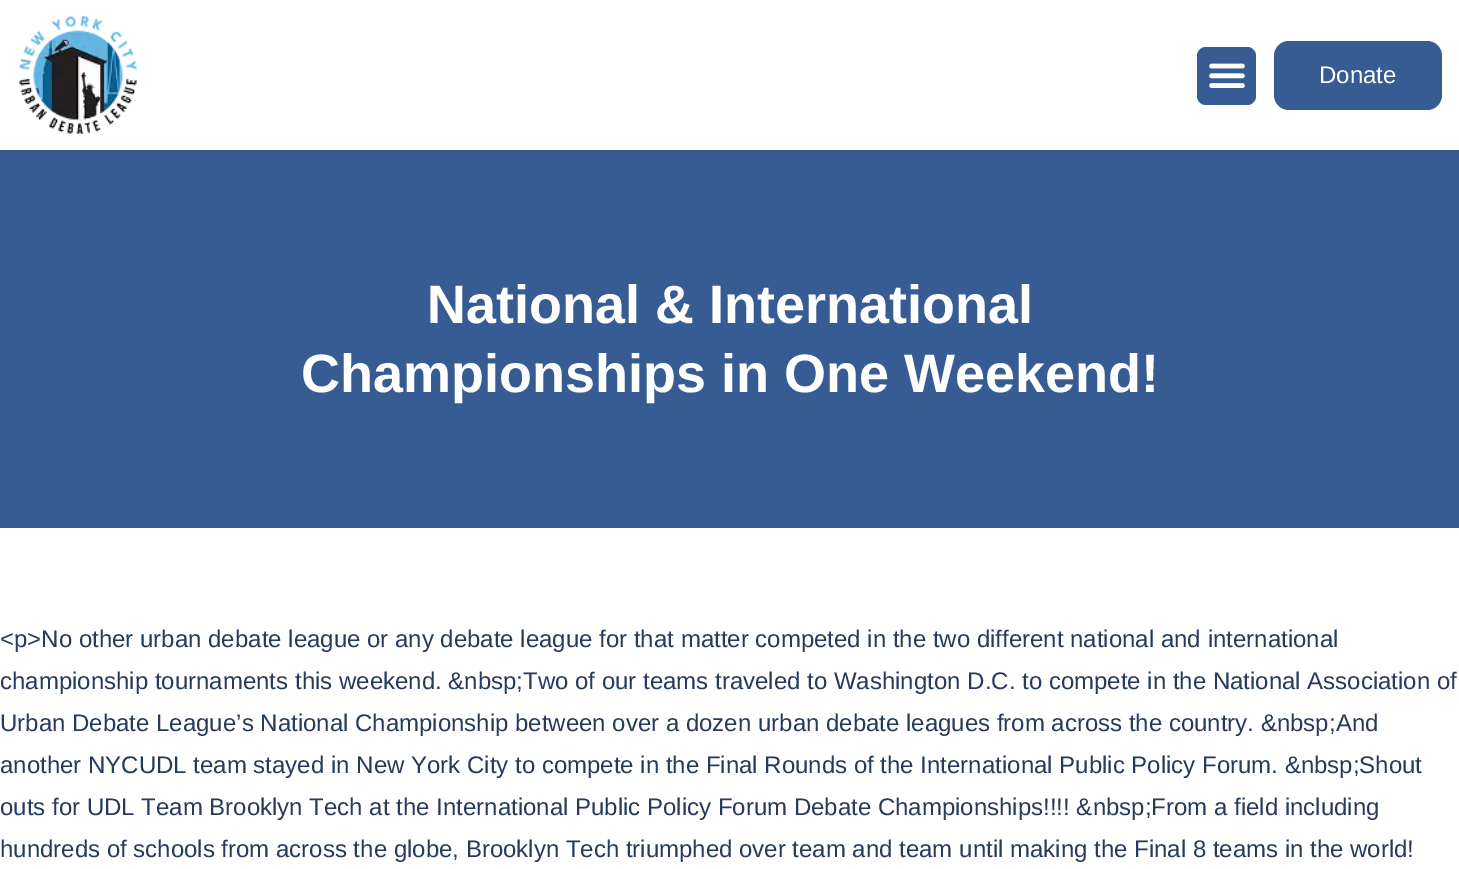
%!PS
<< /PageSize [1459 869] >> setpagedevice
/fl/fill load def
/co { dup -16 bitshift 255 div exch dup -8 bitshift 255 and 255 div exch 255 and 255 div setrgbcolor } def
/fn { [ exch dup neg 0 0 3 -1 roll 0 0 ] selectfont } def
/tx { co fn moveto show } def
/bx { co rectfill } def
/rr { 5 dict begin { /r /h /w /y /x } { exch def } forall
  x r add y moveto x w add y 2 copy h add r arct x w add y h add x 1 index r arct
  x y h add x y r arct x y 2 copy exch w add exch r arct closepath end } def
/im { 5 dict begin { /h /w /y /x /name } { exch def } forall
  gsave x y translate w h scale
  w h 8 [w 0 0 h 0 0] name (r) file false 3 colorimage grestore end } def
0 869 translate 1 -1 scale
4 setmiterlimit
0 0 1459 869 16#FFFFFF bx
(media/1.raw) 19 15 118 119 im
16#375C94 co
1197 47 59 58 9 rr fl
(media/2.raw) 1209 63 36 25 im
1274 41 168 69 15 rr fl
0 150 1459 378 16#375C94 bx
(Donate) 1319 83 /LiberationSans-Regular 24 16#FFFFFF tx
(National & International) 427 323 /LiberationSans-Bold 54 16#FFFFFF tx
(Championships in One Weekend!) 301 392 /LiberationSans-Bold 54 16#FFFFFF tx
(<p>No other urban debate league or any debate league for that matter competed in the two different national and international) 0 647 /LiberationSans-Regular 24 16#263B5C tx
(championship tournaments this weekend. &nbsp;Two of our teams traveled to Washington D.C. to compete in the National Association of) 0 689 /LiberationSans-Regular 24 16#263B5C tx
(Urban Debate League’s National Championship between over a dozen urban debate leagues from across the country. &nbsp;And) 0 731 /LiberationSans-Regular 24 16#263B5C tx
(another NYCUDL team stayed in New York City to compete in the Final Rounds of the International Public Policy Forum. &nbsp;Shout) 0 773 /LiberationSans-Regular 24 16#263B5C tx
(outs for UDL Team Brooklyn Tech at the International Public Policy Forum Debate Championships!!!! &nbsp;From a field including) 0 815 /LiberationSans-Regular 24 16#263B5C tx
(hundreds of schools from across the globe, Brooklyn Tech triumphed over team and team until making the Final 8 teams in the world!) 0 857 /LiberationSans-Regular 24 16#263B5C tx
showpage
